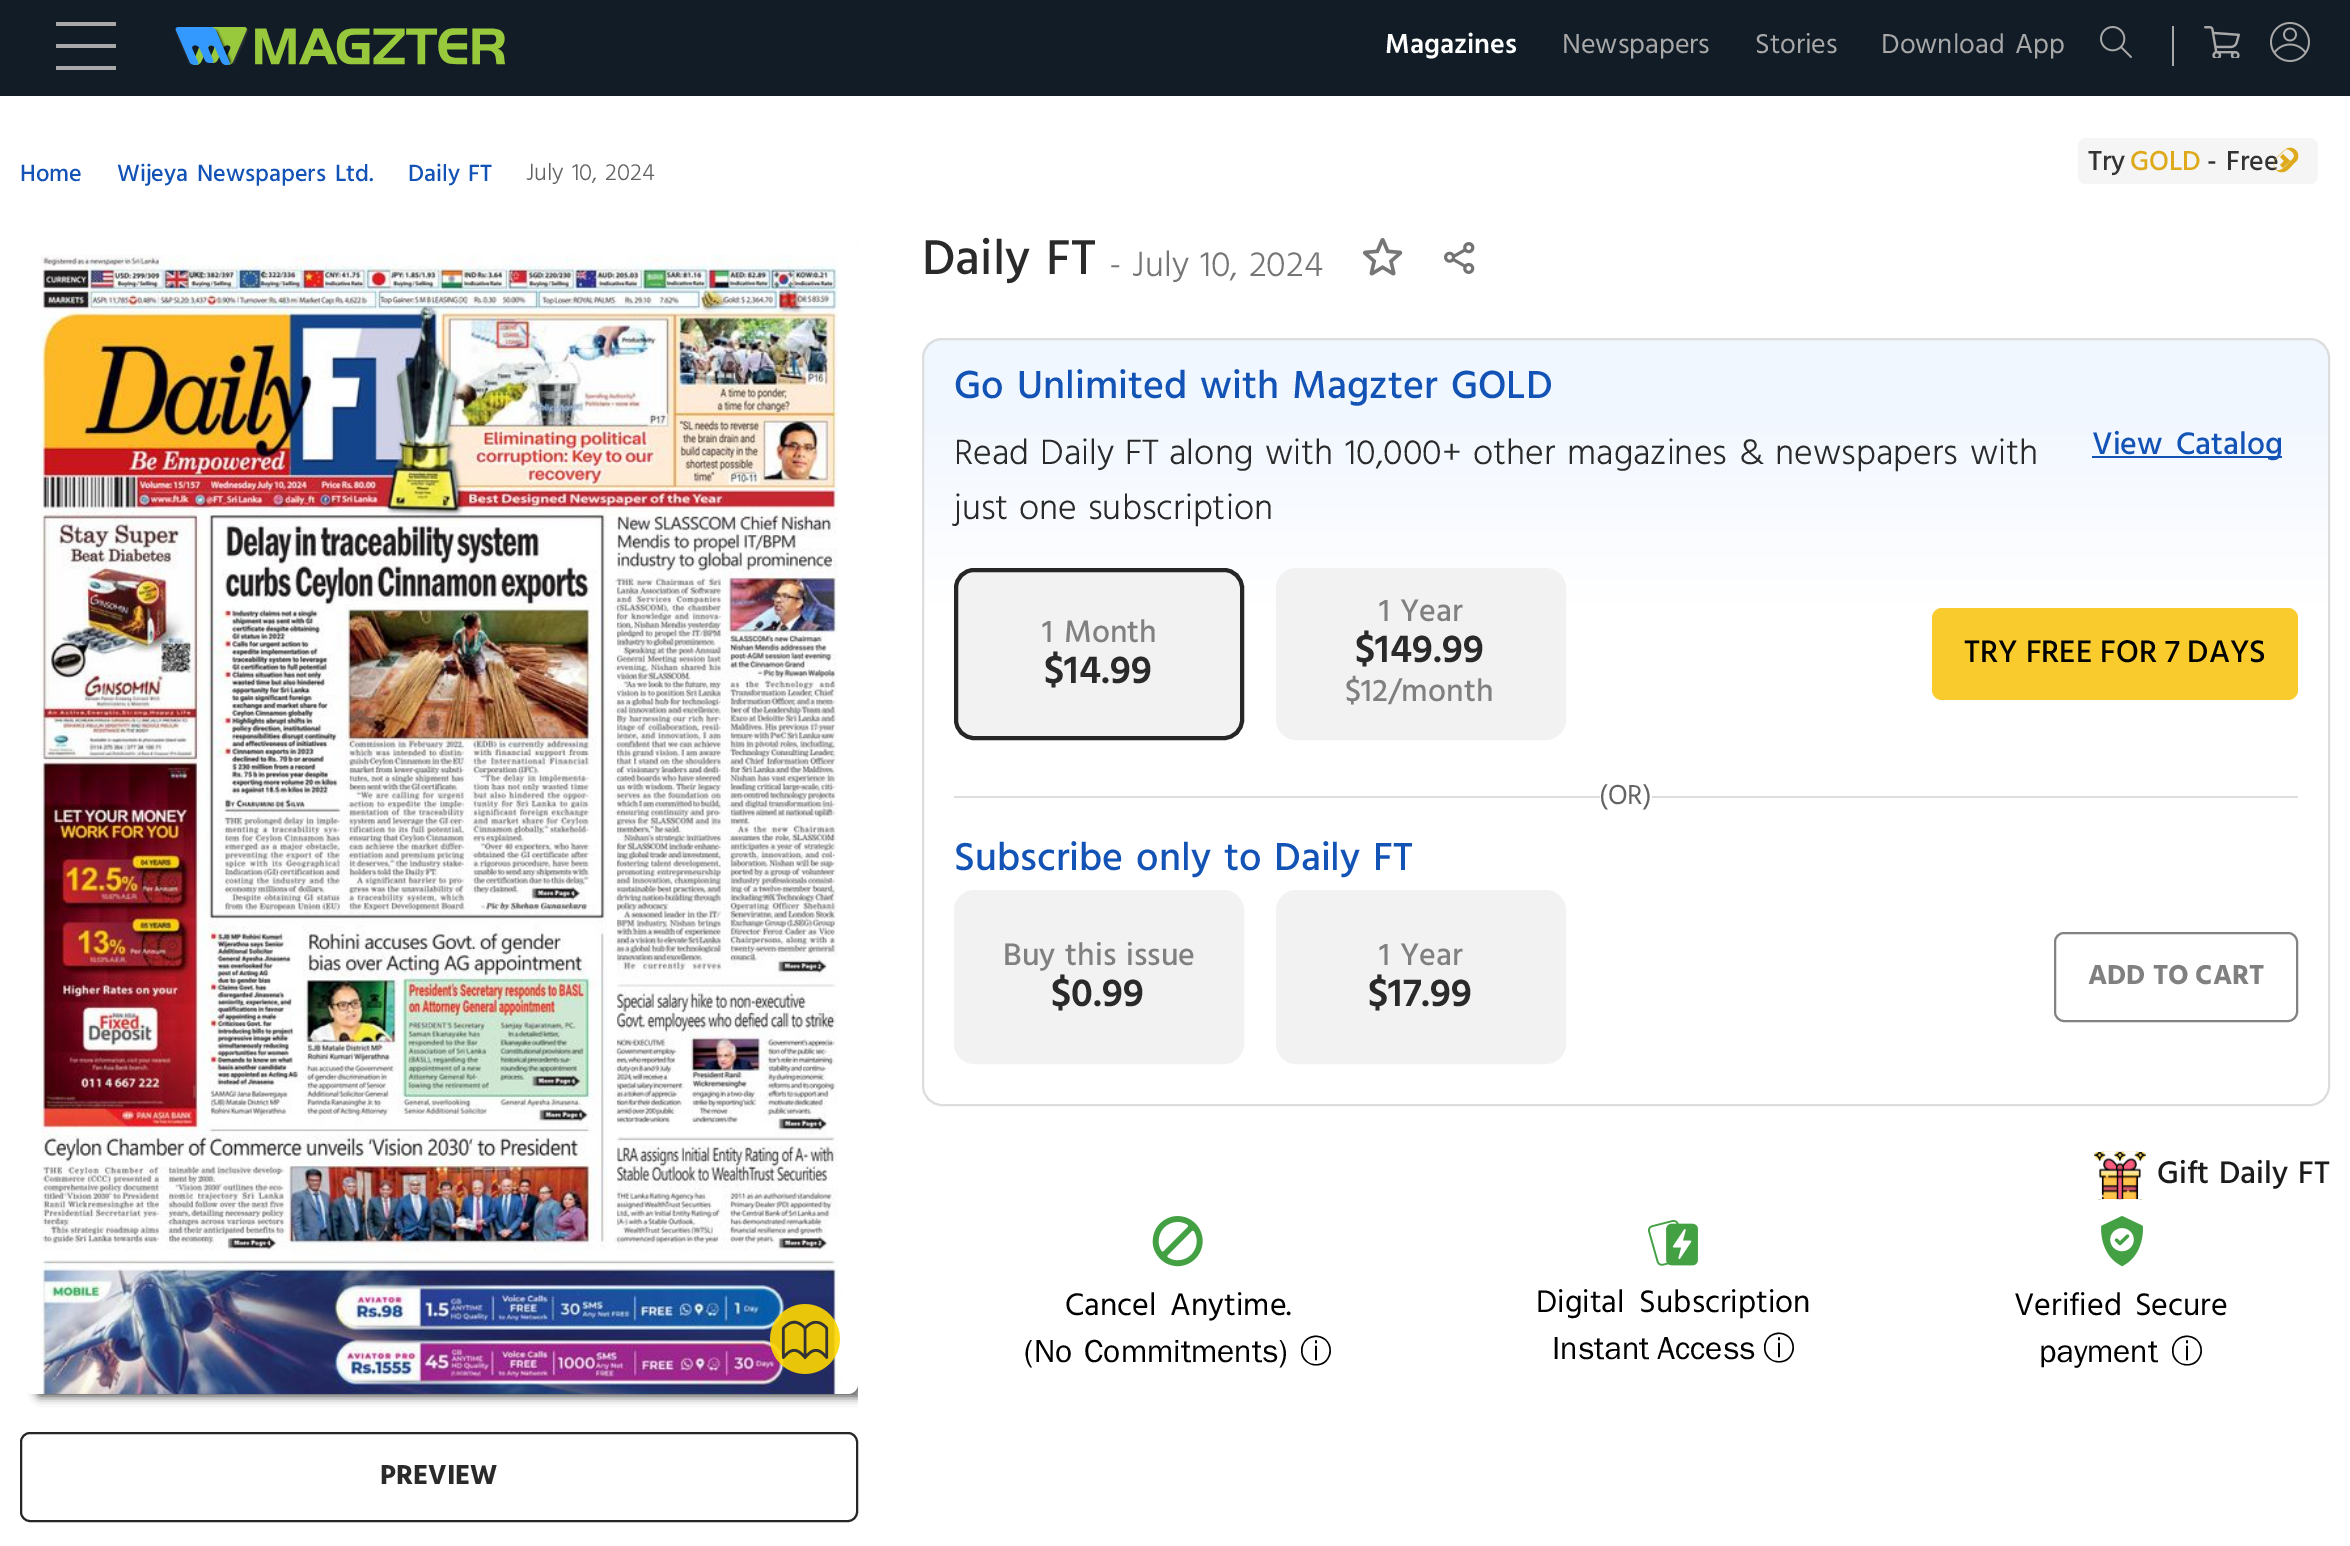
%!PS
<< /PageSize [2350 1546] /PageUsesTransparency true >> setpagedevice
/mt/moveto load def
/li/lineto load def
/ct/curveto load def
/cp/closepath load def
/fl/fill load def
/st/stroke load def
/gs/gsave load def
/gr/grestore load def
/lw/setlinewidth load def
/co { dup -16 bitshift 255 div exch dup -8 bitshift 255 and 255 div exch 255 and 255 div setrgbcolor } def
/fn { [ exch dup neg 0 0 3 -1 roll 0 0 ] selectfont } def
/tx { co fn moveto show } def
/bx { co rectfill } def
/al { dup .setfillconstantalpha .setstrokeconstantalpha } def
/rr { 5 dict begin { /r /h /w /y /x } { exch def } forall
  x r add y moveto x w add y 2 copy h add r arct x w add y h add x 1 index r arct
  x y h add x y r arct x y 2 copy exch w add exch r arct closepath end } def
/sh { 12 dict begin { /a /b /q /h /w /y /x } { exch def } forall gsave /was 0 def
  9 -2 -9 { dup b mul 4 div /e exch def 1 sub .425 mul 2.718 exch exp 1 add a .99 .min exch div /now exch def
    1 1 now sub 1 was sub div sub al /was now def
    w h .min e 2 mul add 0 gt { x e sub y e sub w e 2 mul add h e 2 mul add
      q e add b .6 mul add w h .min 2 div e add .min 0 .max rr fill } if } for grestore end } def
/im { 5 dict begin { /h /w /y /x /name } { exch def } forall
  gsave x y translate w h scale
  w h 8 [w 0 0 h 0 0] name (r) file false 3 colorimage grestore end } def
0 .pushpdf14devicefilter
0 1546 translate 1 -1 scale
4 setmiterlimit
0 0 2350 1546 16#FFFFFF bx
0 0 2350 96 16#111C26 bx
56 22 60 4 16#A8A8A8 bx
56 44 60 4 16#A8A8A8 bx
56 66 60 4 16#A8A8A8 bx
(media/1.raw) 175 27 331 38 im
2172 26 2 40 16#A8A8A8 bx
(media/2.raw) 2100 26 32 32 im
(media/3.raw) 2204 26 36 32 im
(media/4.raw) 2270 22 40 40 im
16#F5F5F5 co
2078 138 240 46 8 rr fl
16#DEAA1C co
2290 161 mt 2283 168 li 2280 165 li 2287 158 li cp fl
2290 161 mt 2287 164 li 2280 157 li 2283 154 li cp fl
(media/5.raw) 1363 238 40 38 im
(media/6.raw) 1444 242 31 32 im
gs
922 338 1408 768 20 rr clip newpath
gs 922 340 mt 2330 340 li 2330 1104 li 922 1104 li cp clip newpath
<< /ShadingType 2 /ColorSpace /DeviceRGB /Coords [1626 340 1626 1104] /Extend [true true] /Function << /FunctionType 3 /Domain [0 1] /Functions [<< /FunctionType 2 /Domain [0 1] /C0 [.945 .969 1] /C1 [.945 .969 1] /N 1 >> << /FunctionType 2 /Domain [0 1] /C0 [.945 .969 1] /C1 [1 1 1] /N 1 >> << /FunctionType 2 /Domain [0 1] /C0 [1 1 1] /C1 [1 1 1] /N 1 >>] /Bounds [.09 .35] /Encode [0 1 0 1 0 1] >> >> shfill gr
gr
16#DDDDDD co
2 lw
923 339 1406 766 19 rr st
2092 456 190 2 16#1253B5 bx
16#F2F2F2 co
956 570 286 168 18 rr gs fl gr
16#262626 co
4 lw
st
16#F2F2F2 co
1277 569 288 170 19 rr gs fl gr
2 lw
st
16#F9CB2D co
1932 608 366 92 10 rr fl
954 796 646 2 16#DDDDDD bx
1652 796 646 2 16#DDDDDD bx
16#F2F2F2 co
955 891 288 172 19 rr gs fl gr
st
1277 891 288 172 19 rr gs fl gr
st
16#828282 co
2055 933 242 88 9 rr st
(media/7.raw) 2094 1151 52 49 im
(media/8.raw) 1152 1216 51 51 im
(media/9.raw) 1647 1220 51 46 im
(media/10.raw) 2101 1216 42 51 im
gs
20 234 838 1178 rectclip
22 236 mt 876 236 li 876 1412 li 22 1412 li cp 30 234 mt 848 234 li 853.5 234 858 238.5 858 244 ct 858 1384 li 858 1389.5 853.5 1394 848 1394 ct 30 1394 li 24.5 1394 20 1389.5 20 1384 ct 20 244 li 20 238.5 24.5 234 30 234 ct cp eoclip newpath
16#333333 co
38 252 822 1144 2 5 1 sh
gr
(media/11.raw) 40 254 818 1140 im
(media/12.raw) 770 1304 70 70 im
16#262626 co
21 1433 836 88 9 rr st
(Magazines) 1385 53 /Hind-SemiBold 28 16#FFFFFF tx
(Newspapers) 1562 53 /Hind-Regular 28 16#A8A8A8 tx
(Stories) 1755 53 /Hind-Regular 28 16#A8A8A8 tx
1881 53 mt 4 0 32 (Download App) widthshow
(Try) 2088 170 /Hind-Medium 28 16#333333 tx
(GOLD) 2130 170 /Hind-Medium 28 16#DEAA1C tx
16#333333 co
2207 170 mt 2 0 32 (- Free) widthshow
16#DEAA1C co
2296 161.5 mt 2293 164 2288 170.5 2285 171.5 ct 2276.5 175 2270.5 165 2276 158.5 ct 2278.5 156 2284.5 149.5 2287 148.5 ct 2295 145 2302 155.5 2296 161.5 ct cp 2293 158.5 mt 2289.5 162 2284 169 2280 170 ct 2274.5 172 2273 165 2274.5 161 ct 2275 159.5 2276.5 158.5 2277.5 157 ct 2285.5 149.5 li 2289 148 2297 154.5 2293 158.5 ct cp eofill
(Home) 20 181 /Hind-Medium 24 16#1253B5 tx
117 181 mt 3 0 32 (Wijeya Newspapers Ltd.) widthshow
408 181 mt 2 0 32 (Daily FT) widthshow
/Hind-Light 24 fn
16#636363 co
526 180 mt 2 0 32 (July 10, 2024) widthshow
/Hind-Medium 50 fn
16#2A2A2A co
922 274 mt 4 0 32 (Daily FT) widthshow
/Hind-Light 36 fn
16#767676 co
1109 276 mt 2 0 32 (- July 10, 2024) widthshow
/Hind-Medium 40 fn
16#1253B5 co
954 398 mt 3.5 0 32 (Go Unlimited with Magzter GOLD) widthshow
(Read) 954 464 /Hind-Light 36 16#2A2A2A tx
1040 464 mt 2 0 32 (Daily FT) widthshow
1169 464 mt 3 0 32 (along with 10,000+ other magazines & newspapers with) widthshow
954 519 mt 2 0 32 (just one subscription) widthshow
/Hind-Medium 32 fn
16#1253B5 co
2092 454 mt 5 0 32 (View Catalog) widthshow
16#808080 co
1042 642 mt 3 0 32 (1 Month) widthshow
($14.99) 1044 683 /Hind-SemiBold 40 16#2A2A2A tx
/Hind-Medium 32 fn
16#808080 co
1379 621 mt 2 0 32 (1 Year) widthshow
($149.99) 1355 662 /Hind-SemiBold 40 16#2A2A2A tx
($12/month) 1345 701 /Hind-Medium 32 16#808080 tx
(TRY FREE FOR 7 DAYS) 1964 662 /Hind-Medium 32 16#000000 tx
(\(OR\)) 1599 804 /Hind-Regular 28 16#636363 tx
/Hind-Medium 40 fn
16#1253B5 co
954 870 mt 3 0 32 (Subscribe only to Daily FT) widthshow
/Hind-Medium 32 fn
16#808080 co
1003 965 mt 2 0 32 (Buy this issue) widthshow
($0.99) 1051 1006 /Hind-SemiBold 40 16#2A2A2A tx
/Hind-Medium 32 fn
16#808080 co
1379 965 mt 2 0 32 (1 Year) widthshow
($17.99) 1368 1006 /Hind-SemiBold 40 16#2A2A2A tx
(ADD TO CART) 2088 984 /Hind-Bold 28 16#808080 tx
/Hind-Medium 32 fn
16#1B1B1B co
2157 1183 mt 2 0 32 (Gift Daily FT) widthshow
/Hind-Regular 32 fn
16#000000 co
1065 1315 mt 6 0 32 (Cancel Anytime.) widthshow
/WenQuanYiZenHei-Medium 32 fn
1024 1362 mt 2 0 32 (\(No Commitments\) ⓘ) widthshow
/Hind-Regular 32 fn
1536 1312 mt 7 0 32 (Digital Subscription) widthshow
/WenQuanYiZenHei-Medium 32 fn
1552 1359 mt -2 0 32 (Instant Access ⓘ) widthshow
/Hind-Regular 32 fn
2014 1315 mt 5 0 32 (Verified Secure) widthshow
/WenQuanYiZenHei-Medium 32 fn
2039 1362 mt 4 0 32 (payment ⓘ) widthshow
(PREVIEW) 380 1484 /Hind-Bold 28 16#2A2A2A tx
.poppdf14devicefilter showpage
